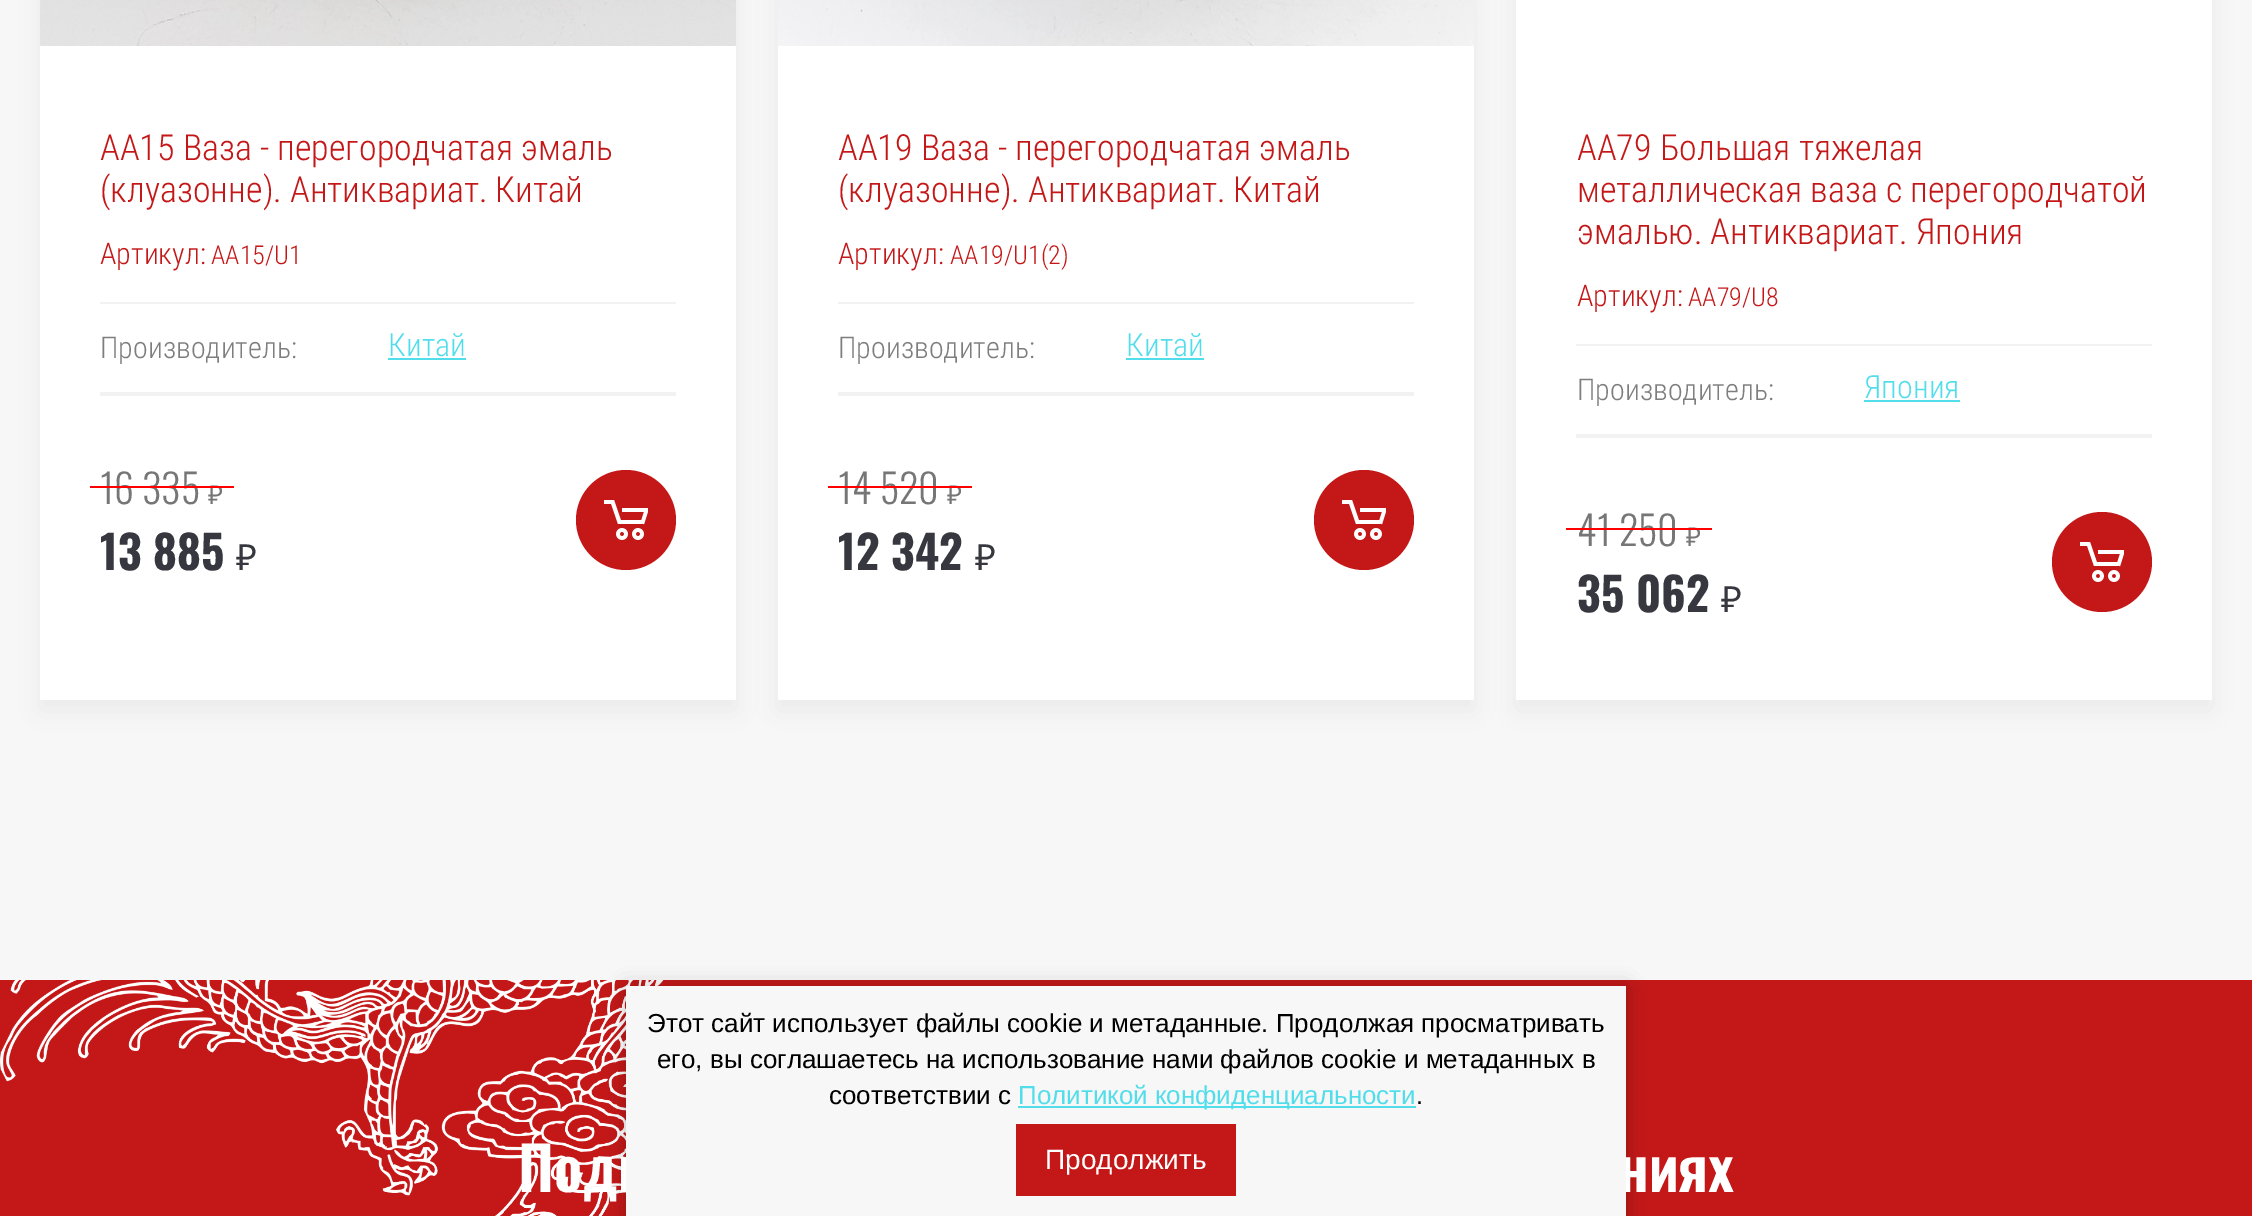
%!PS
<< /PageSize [2252 1216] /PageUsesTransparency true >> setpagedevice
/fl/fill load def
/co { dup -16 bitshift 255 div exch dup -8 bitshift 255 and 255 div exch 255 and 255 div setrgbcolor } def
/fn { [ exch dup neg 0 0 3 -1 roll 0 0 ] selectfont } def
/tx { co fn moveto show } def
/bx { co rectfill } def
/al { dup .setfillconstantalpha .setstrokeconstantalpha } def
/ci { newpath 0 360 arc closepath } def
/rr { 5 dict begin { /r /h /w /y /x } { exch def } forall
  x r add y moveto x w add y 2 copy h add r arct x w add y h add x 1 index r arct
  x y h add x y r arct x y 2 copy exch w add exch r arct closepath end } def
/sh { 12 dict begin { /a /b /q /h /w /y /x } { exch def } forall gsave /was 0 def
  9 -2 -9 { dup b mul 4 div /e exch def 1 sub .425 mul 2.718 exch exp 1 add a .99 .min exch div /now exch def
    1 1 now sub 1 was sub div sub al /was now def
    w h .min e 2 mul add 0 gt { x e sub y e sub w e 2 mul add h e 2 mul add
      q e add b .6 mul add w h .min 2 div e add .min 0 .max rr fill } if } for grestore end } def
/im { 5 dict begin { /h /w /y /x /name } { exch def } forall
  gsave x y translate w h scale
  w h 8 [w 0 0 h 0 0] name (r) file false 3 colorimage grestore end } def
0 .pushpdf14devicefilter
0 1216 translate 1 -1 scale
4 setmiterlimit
0 0 2252 1216 16#F7F7F7 bx
16#000000 co
40 -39 696 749 0 13 .05 sh
40 46 696 654 16#FFFFFF bx
(media/1.raw) 40 0 696 46 im
100 392 576 4 16#F2F2F2 bx
100 302 576 2 16#F2F2F2 bx
388 358 78 2 16#52DDEA bx
16#C41818 co
626 520 50 ci fl
(media/2.raw) 604 500 44 40 im
16#000000 co
778 -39 696 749 0 13 .05 sh
778 46 696 654 16#FFFFFF bx
(media/3.raw) 778 0 696 46 im
838 392 576 4 16#F2F2F2 bx
838 302 576 2 16#F2F2F2 bx
1126 358 78 2 16#52DDEA bx
16#C41818 co
1364 520 50 ci fl
(media/2.raw) 1342 500 44 40 im
16#000000 co
1516 -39 696 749 0 13 .05 sh
1516 0 696 700 16#FFFFFF bx
1576 434 576 4 16#F2F2F2 bx
1576 344 576 2 16#F2F2F2 bx
1864 400 96 2 16#52DDEA bx
16#C41818 co
2102 562 50 ci fl
(media/2.raw) 2080 542 44 40 im
0 980 2252 236 16#C41818 bx
(media/4.raw) 0 980 664 236 im
16#000000 co
626 988 1000 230 0 10 .25 sh
(AA15 Ваза - перегородчатая эмаль) 100 160 /RobotoCondensed-Light 36 16#C41818 tx
(\(клуазонне\). Антиквариат. Китай) 100 202 /RobotoCondensed-Light 36 16#C41818 tx
(Артикул:) 100 264 /RobotoCondensed-Light 30 16#C41818 tx
(AA15/U1) 211 264 /RobotoCondensed-Light 26 16#C41818 tx
(Производитель:) 100 358 /RobotoCondensed-Light 30 16#7E7E7E tx
(Китай) 388 356 /RobotoCondensed-Light 32 16#52DDEA tx
(16 335) 100 504 /Oswald-Light 40 16#767676 tx
(₽) 208 504 /NotoSans-Regular 26 16#767676 tx
90 486 144 2 16#FF0000 bx
(13 885) 100 570 /Oswald-Bold 46 16#373740 tx
(₽) 236 570 /NotoSans-Regular 36 16#373740 tx
(AA19 Ваза - перегородчатая эмаль) 838 160 /RobotoCondensed-Light 36 16#C41818 tx
(\(клуазонне\). Антиквариат. Китай) 838 202 /RobotoCondensed-Light 36 16#C41818 tx
(Артикул:) 838 264 /RobotoCondensed-Light 30 16#C41818 tx
(AA19/U1\(2\)) 950 264 /RobotoCondensed-Light 26 16#C41818 tx
(Производитель:) 838 358 /RobotoCondensed-Light 30 16#7E7E7E tx
(Китай) 1126 356 /RobotoCondensed-Light 32 16#52DDEA tx
(14 520) 838 504 /Oswald-Light 40 16#767676 tx
(₽) 947 504 /NotoSans-Regular 26 16#767676 tx
828 486 144 2 16#FF0000 bx
(12 342) 838 570 /Oswald-Bold 46 16#373740 tx
(₽) 975 570 /NotoSans-Regular 36 16#373740 tx
(AA79 Большая тяжелая) 1577 160 /RobotoCondensed-Light 36 16#C41818 tx
(металлическая ваза с перегородчатой) 1577 202 /RobotoCondensed-Light 36 16#C41818 tx
(эмалью. Антиквариат. Япония) 1577 244 /RobotoCondensed-Light 36 16#C41818 tx
(Артикул:) 1577 306 /RobotoCondensed-Light 30 16#C41818 tx
(AA79/U8) 1688 306 /RobotoCondensed-Light 26 16#C41818 tx
(Производитель:) 1577 400 /RobotoCondensed-Light 30 16#7E7E7E tx
(Япония) 1864 398 /RobotoCondensed-Light 32 16#52DDEA tx
(41 250) 1577 546 /Oswald-Light 40 16#767676 tx
(₽) 1686 546 /NotoSans-Regular 26 16#767676 tx
1566 528 146 2 16#FF0000 bx
(35 062) 1577 612 /Oswald-Bold 46 16#373740 tx
(₽) 1721 612 /NotoSans-Regular 36 16#373740 tx
(Подп) 518 1192 /Oswald-SemiBold 60 16#FFFFFF tx
(ниях) 1618 1192 /Oswald-SemiBold 60 16#FFFFFF tx
626 986 1000 230 16#F7F7F7 bx
(Этот сайт использует файлы cookie и метаданные. Продолжая просматривать) 647 1032 /LiberationSans-Regular 26 16#000000 tx
(его, вы соглашаетесь на использование нами файлов cookie и метаданных в) 657 1068 /LiberationSans-Regular 26 16#000000 tx
(соответствии с) 829 1104 /LiberationSans-Regular 26 16#000000 tx
1018 1106 398 2 16#52DDEA bx
(Политикой конфиденциальности) 1018 1104 /LiberationSans-Regular 26 16#52DDEA tx
(.) 1416 1104 /LiberationSans-Regular 26 16#000000 tx
1016 1124 220 72 16#C41818 bx
(Продолжить) 1045 1169 /LiberationSans-Regular 28 16#FFFFFF tx
.poppdf14devicefilter showpage
